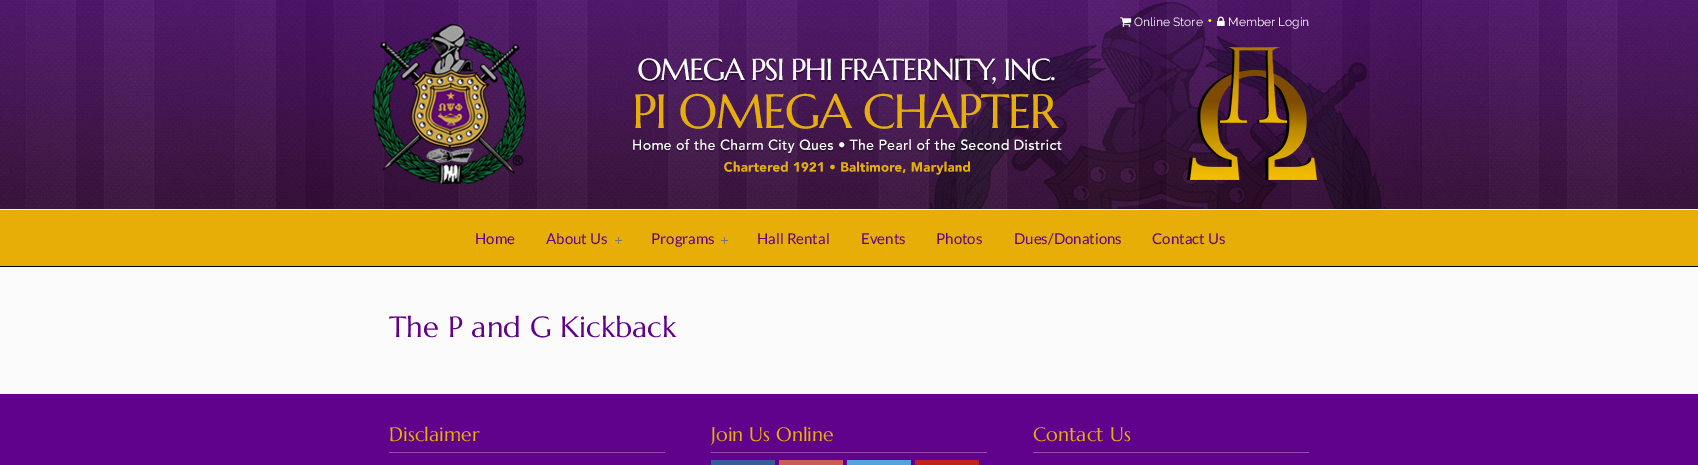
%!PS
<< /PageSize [1698 465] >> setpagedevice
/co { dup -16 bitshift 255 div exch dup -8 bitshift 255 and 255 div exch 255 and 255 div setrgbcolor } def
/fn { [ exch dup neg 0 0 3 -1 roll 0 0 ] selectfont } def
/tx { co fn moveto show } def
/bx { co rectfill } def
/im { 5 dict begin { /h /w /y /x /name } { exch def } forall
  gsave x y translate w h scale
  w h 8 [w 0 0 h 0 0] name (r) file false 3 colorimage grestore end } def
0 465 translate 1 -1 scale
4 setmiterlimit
0 0 1698 465 16#FBFBFB bx
(media/1.raw) 0 0 1698 267 im
(media/2.raw) 276 0 1146 216 im
(media/3.raw) 1120 17 12 10 im
(media/4.raw) 1217 16 8 10 im
(media/5.raw) 615 237 7 7 im
(media/5.raw) 721 237 7 7 im
0 394 1698 71 16#60028B bx
(media/6.raw) 389 451 276 2 im
(media/6.raw) 711 451 276 2 im
711 460 64 5 16#3B5998 bx
779 460 64 5 16#CD5959 bx
847 460 64 5 16#56A3D9 bx
915 460 64 5 16#BF221F bx
(media/6.raw) 1033 451 276 2 im
(Online Store) 1134 26 /Raleway-Thin 12 16#FFFFFF tx
(•) 1207 26 /Raleway-Thin 16 16#FFFF00 tx
(Member Login) 1228 26 /Raleway-Thin 12 16#FFFFFF tx
(Home) 475 244 /Lato-Regular 15 16#60028C tx
(About Us) 546 244 /Lato-Regular 15 16#60028C tx
(Programs) 651 244 /Lato-Regular 15 16#60028C tx
(Hall Rental) 757 244 /Lato-Regular 15 16#60028C tx
(Events) 861 244 /Lato-Regular 15 16#60028C tx
(Photos) 936 244 /Lato-Regular 15 16#60028C tx
(Dues/Donations) 1014 244 /Lato-Regular 15 16#60028C tx
(Contact Us) 1152 244 /Lato-Regular 15 16#60028C tx
(The P and G Kickback) 389 337 /Marcellus-Regular 29.25 16#60028C tx
(Disclaimer) 389 441 /Marcellus-Regular 19.5 16#E7AE07 tx
(Join Us Online) 711 441 /Marcellus-Regular 19.5 16#E7AE07 tx
(Contact Us) 1033 441 /Marcellus-Regular 19.5 16#E7AE07 tx
showpage
